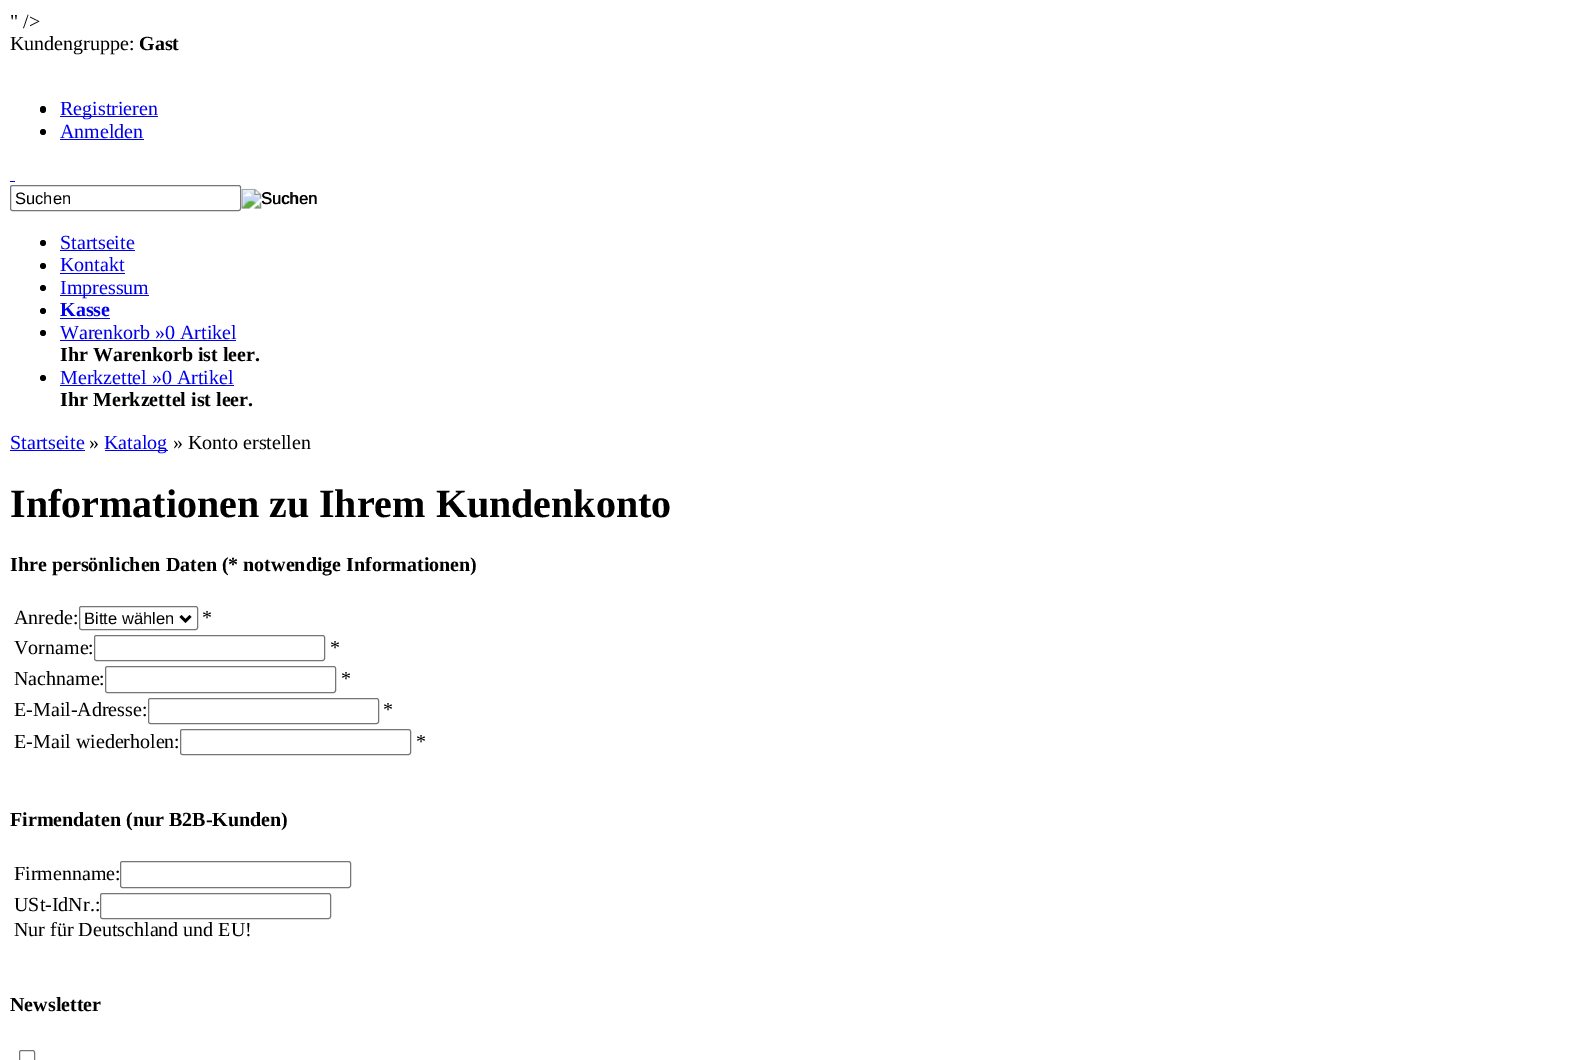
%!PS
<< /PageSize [1580 1060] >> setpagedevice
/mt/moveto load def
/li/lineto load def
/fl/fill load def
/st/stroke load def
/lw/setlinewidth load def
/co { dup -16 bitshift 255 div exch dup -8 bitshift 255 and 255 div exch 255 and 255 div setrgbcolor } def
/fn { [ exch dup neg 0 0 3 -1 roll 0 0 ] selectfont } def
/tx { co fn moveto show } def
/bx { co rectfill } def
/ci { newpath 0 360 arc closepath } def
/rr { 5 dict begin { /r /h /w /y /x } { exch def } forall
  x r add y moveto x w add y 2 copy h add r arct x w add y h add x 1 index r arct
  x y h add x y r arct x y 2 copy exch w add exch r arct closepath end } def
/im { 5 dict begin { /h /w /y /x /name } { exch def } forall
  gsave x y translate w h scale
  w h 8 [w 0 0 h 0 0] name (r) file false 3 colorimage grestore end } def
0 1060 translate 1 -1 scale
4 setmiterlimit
0 0 1580 1060 16#FFFFFF bx
16#000000 co
40 106 6 7 3 rr fl
60 116 98 1 16#0000EE bx
16#000000 co
43 132 3 ci fl
60 139 84 1 16#0000EE bx
10 181 5 1 16#0000EE bx
16#767676 co
10.5 185.5 230 25 2 rr st
(media/1.raw) 241 188 76 21 im
16#000000 co
43 243 3 ci fl
60 250 75 1 16#0000EE bx
16#000000 co
43 266 3 ci fl
60 273 65 1 16#0000EE bx
16#000000 co
43 288 3 ci fl
60 295 89 1 16#0000EE bx
16#000000 co
43 311 3 ci fl
60 318 50 1 16#0000EE bx
16#000000 co
43 333 3 ci fl
60 340 176 1 16#0000EE bx
16#000000 co
43 378 3 ci fl
60 385 174 1 16#0000EE bx
10 450 75 1 16#0000EE bx
105 450 63 1 16#0000EE bx
16#767676 co
79.5 606.5 118 23 2 rr st
16#000000 co
2.5 lw
180.5 616 mt 185.5 621 li 190.5 616 li st
16#767676 co
1 lw
94.5 635.5 230 25 2 rr st
105.5 666.5 230 26 2 rr st
148.5 698.5 230 25 2 rr st
180.5 729.5 230 25 2 rr st
120.5 861.5 230 26 2 rr st
100.5 893.5 230 25 2 rr st
19.5 1050.5 15 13 2 rr st
(" />) 10 28 /LiberationSerif-Regular 20 16#000000 tx
(Kundengruppe:) 10 50 /LiberationSerif-Regular 20 16#000000 tx
(Gast) 139 50 /LiberationSerif-Bold 20 16#000000 tx
(Registrieren) 60 115 /LiberationSerif-Regular 20 16#0000EE tx
(Anmelden) 60 138 /LiberationSerif-Regular 20 16#0000EE tx
(Suchen) 15 204 /LiberationSans-Regular 16.5 16#000000 tx
(Suchen) 261 204 /LiberationSans-Regular 16.5 16#000000 tx
(Startseite) 60 249 /LiberationSerif-Regular 20 16#0000EE tx
(Kontakt) 60 271 /LiberationSerif-Regular 20 16#0000EE tx
(Impressum) 60 294 /LiberationSerif-Regular 20 16#0000EE tx
(Kasse) 60 316 /LiberationSerif-Bold 20 16#0000EE tx
(Warenkorb »0 Artikel) 60 339 /LiberationSerif-Regular 20 16#0000EE tx
(Ihr Warenkorb ist leer.) 60 361 /LiberationSerif-Bold 20 16#000000 tx
(Merkzettel »0 Artikel) 60 384 /LiberationSerif-Regular 20 16#0000EE tx
(Ihr Merkzettel ist leer.) 60 406 /LiberationSerif-Bold 20 16#000000 tx
(Startseite) 10 449 /LiberationSerif-Regular 20 16#0000EE tx
(») 89 449 /LiberationSerif-Regular 20 16#000000 tx
(Katalog) 104 449 /LiberationSerif-Regular 20 16#0000EE tx
(» Konto erstellen) 173 449 /LiberationSerif-Regular 20 16#000000 tx
(Informationen zu Ihrem Kundenkonto) 10 517 /LiberationSerif-Bold 40 16#000000 tx
(Ihre persönlichen Daten \(* notwendige Informationen\)) 10 571 /LiberationSerif-Bold 20 16#000000 tx
(Anrede:) 14 624 /LiberationSerif-Regular 20 16#000000 tx
(Bitte wählen) 84 624 /LiberationSans-Regular 16.5 16#000000 tx
(*) 202 624 /LiberationSerif-Regular 20 16#000000 tx
(Vorname:) 14 654 /LiberationSerif-Regular 20 16#000000 tx
(*) 330 654 /LiberationSerif-Regular 20 16#000000 tx
(Nachname:) 14 685 /LiberationSerif-Regular 20 16#000000 tx
(*) 341 685 /LiberationSerif-Regular 20 16#000000 tx
(E-Mail-Adresse:) 14 716 /LiberationSerif-Regular 20 16#000000 tx
(*) 383 716 /LiberationSerif-Regular 20 16#000000 tx
(E-Mail wiederholen:) 14 748 /LiberationSerif-Regular 20 16#000000 tx
(*) 416 748 /LiberationSerif-Regular 20 16#000000 tx
(Firmendaten \(nur B2B-Kunden\)) 10 826 /LiberationSerif-Bold 20 16#000000 tx
(Firmenname:) 14 880 /LiberationSerif-Regular 20 16#000000 tx
(USt-IdNr.:) 14 911 /LiberationSerif-Regular 20 16#000000 tx
(Nur für Deutschland und EU!) 14 936 /LiberationSerif-Regular 20 16#000000 tx
(Newsletter) 10 1011 /LiberationSerif-Bold 20 16#000000 tx
showpage
